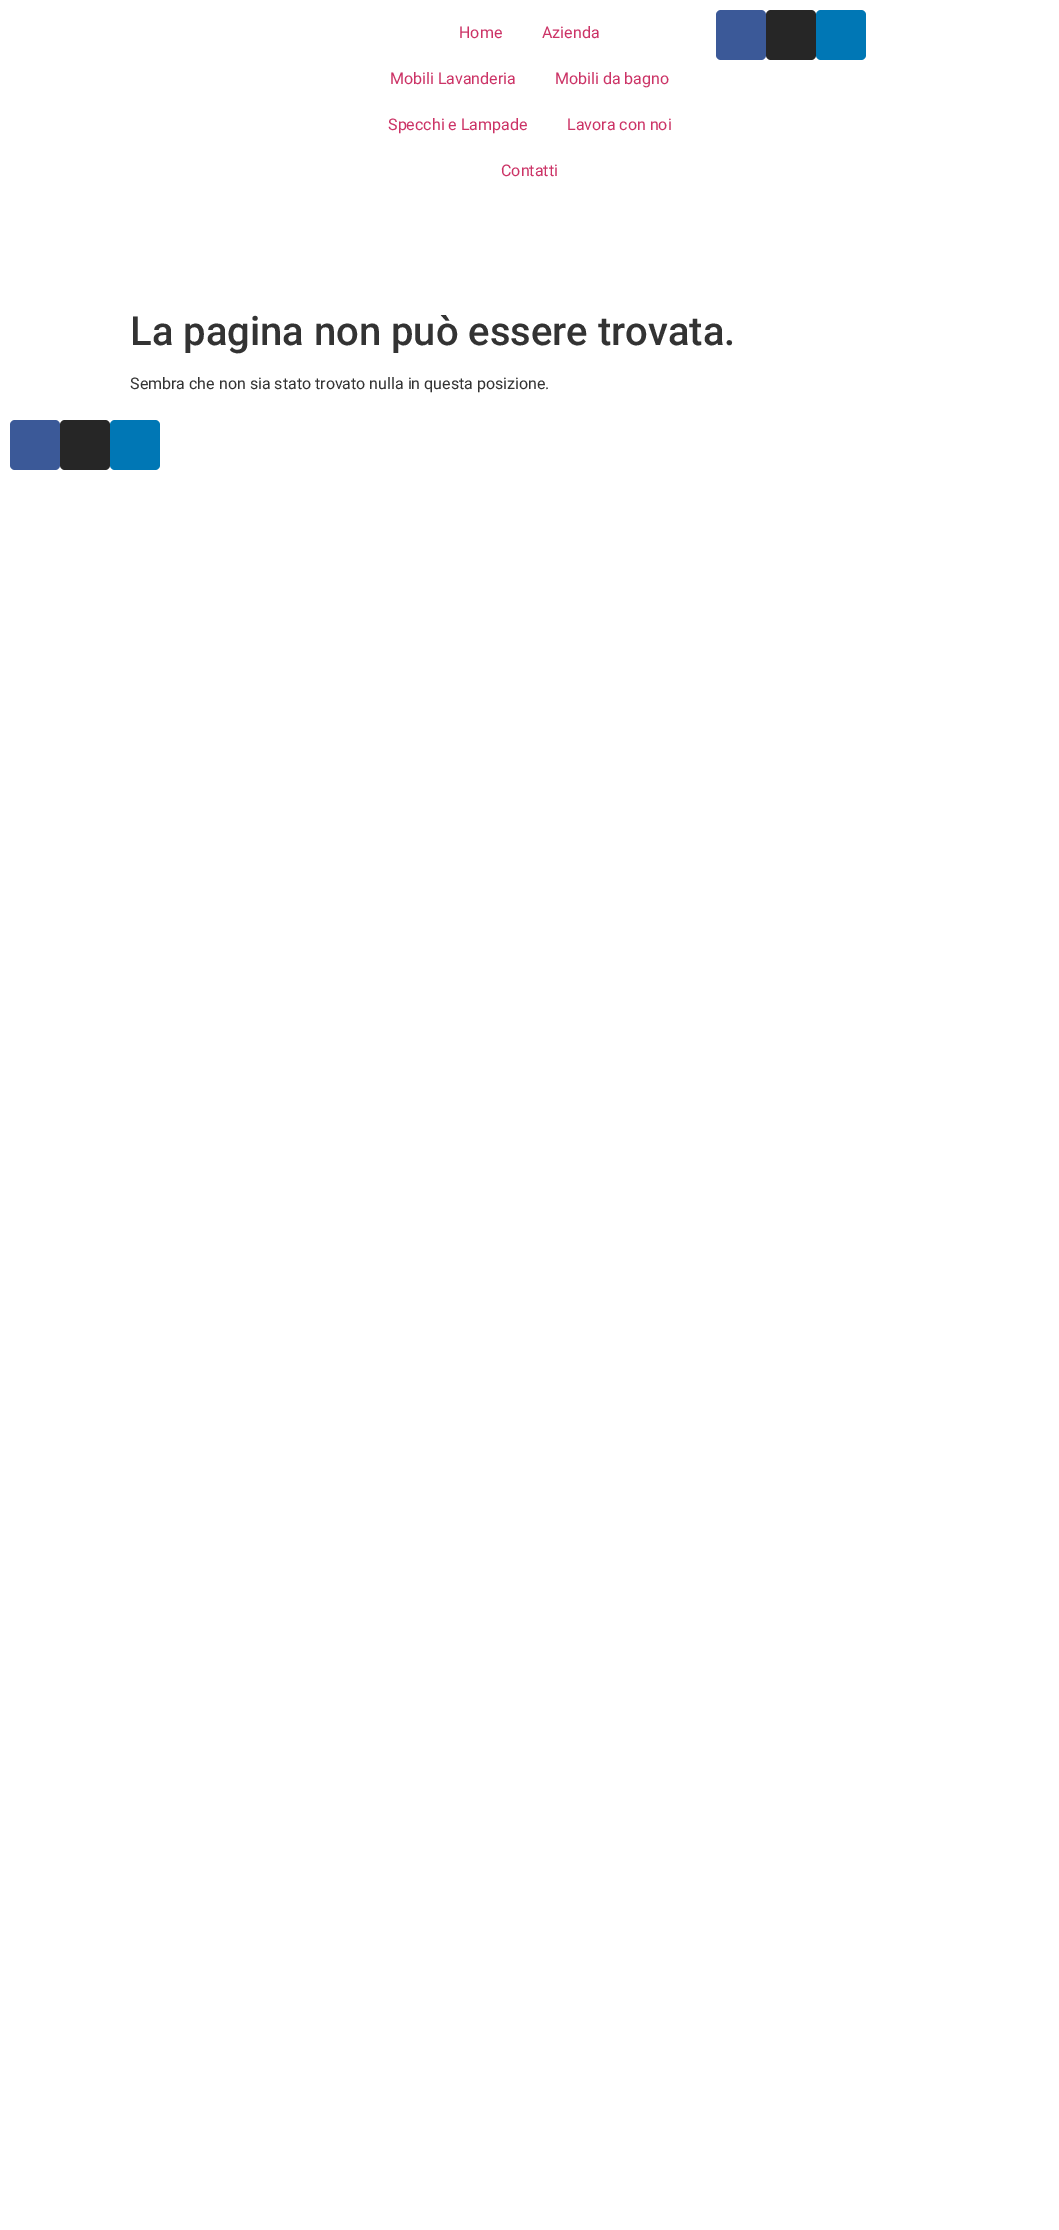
%!PS
<< /PageSize [1059 2230] >> setpagedevice
/fl/fill load def
/co { dup -16 bitshift 255 div exch dup -8 bitshift 255 and 255 div exch 255 and 255 div setrgbcolor } def
/fn { [ exch dup neg 0 0 3 -1 roll 0 0 ] selectfont } def
/tx { co fn moveto show } def
/bx { co rectfill } def
/rr { 5 dict begin { /r /h /w /y /x } { exch def } forall
  x r add y moveto x w add y 2 copy h add r arct x w add y h add x 1 index r arct
  x y h add x y r arct x y 2 copy exch w add exch r arct closepath end } def
0 2230 translate 1 -1 scale
4 setmiterlimit
0 0 1059 2230 16#FFFFFF bx
16#3B5998 co
716 10 50 50 5 rr fl
16#262626 co
766 10 50 50 5 rr fl
16#0077B5 co
816 10 50 50 5 rr fl
16#3B5998 co
10 420 50 50 5 rr fl
16#262626 co
60 420 50 50 5 rr fl
16#0077B5 co
110 420 50 50 5 rr fl
(Home) 459 38 /Roboto-Regular 16 16#CC3366 tx
(Azienda) 542 38 /Roboto-Regular 16 16#CC3366 tx
(Mobili Lavanderia) 390 84 /Roboto-Regular 16 16#CC3366 tx
(Mobili da bagno) 555 84 /Roboto-Regular 16 16#CC3366 tx
(Specchi e Lampade) 388 130 /Roboto-Regular 16 16#CC3366 tx
(Lavora con noi) 567 130 /Roboto-Regular 16 16#CC3366 tx
(Contatti) 501 176 /Roboto-Regular 16 16#CC3366 tx
(La pagina non può essere trovata.) 130 345 /Roboto-Medium 40 16#333333 tx
(Sembra che non sia stato trovato nulla in questa posizione.) 130 389 /Roboto-Regular 16 16#333333 tx
showpage
